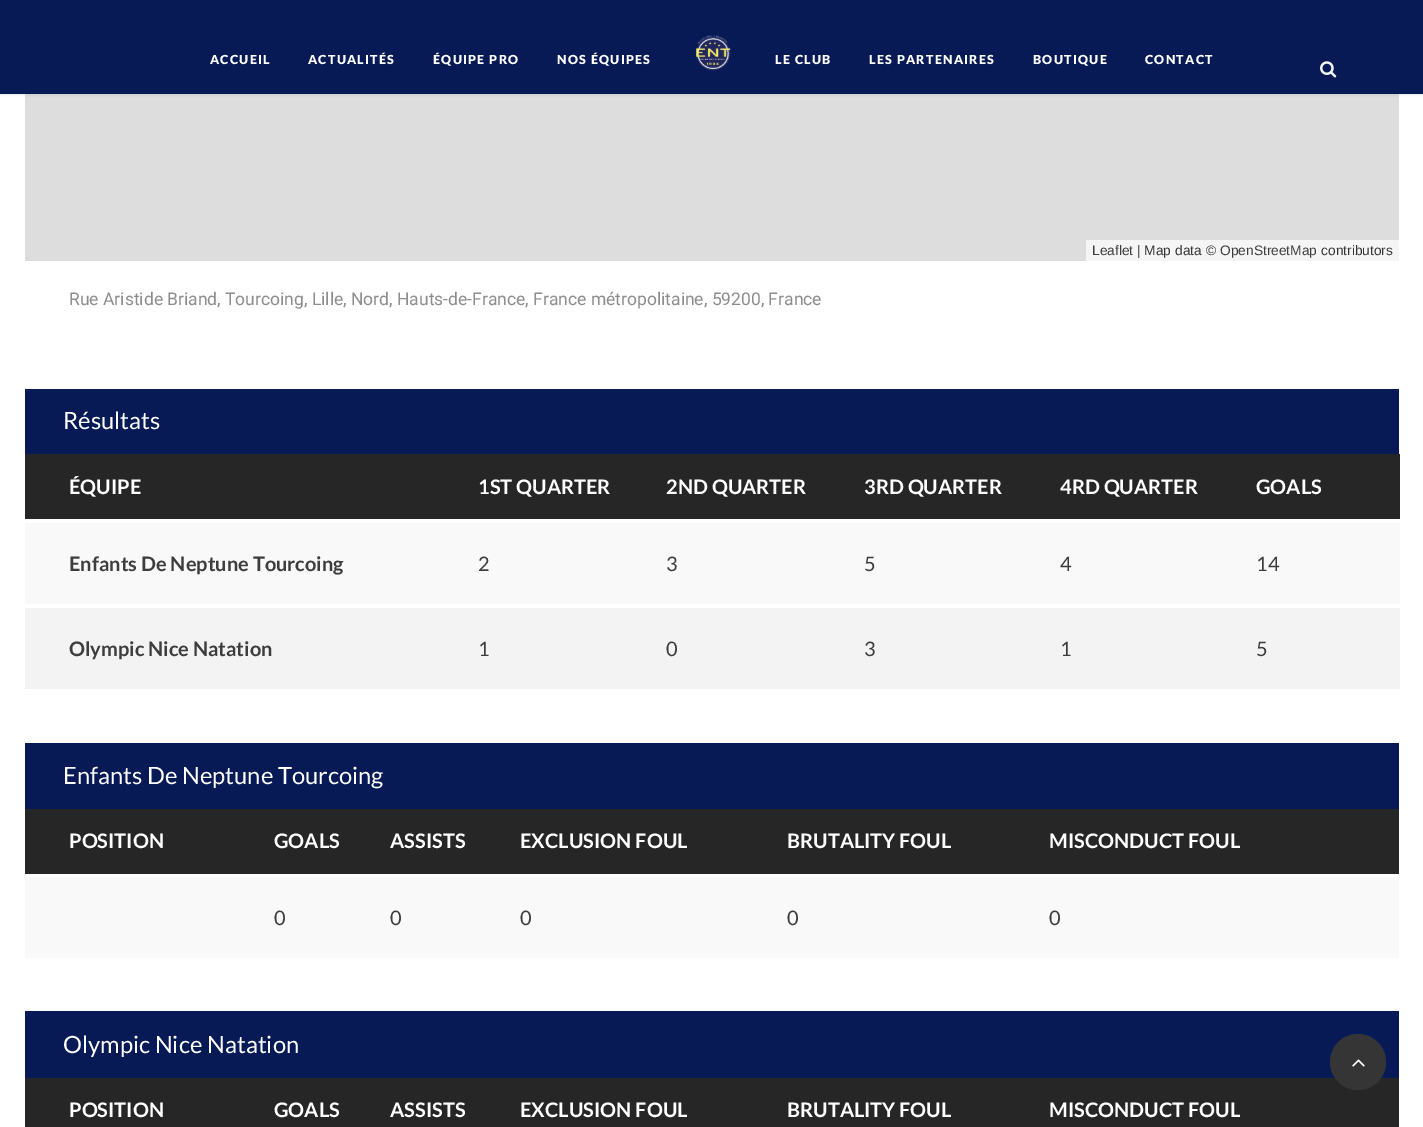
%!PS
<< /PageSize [1423 1127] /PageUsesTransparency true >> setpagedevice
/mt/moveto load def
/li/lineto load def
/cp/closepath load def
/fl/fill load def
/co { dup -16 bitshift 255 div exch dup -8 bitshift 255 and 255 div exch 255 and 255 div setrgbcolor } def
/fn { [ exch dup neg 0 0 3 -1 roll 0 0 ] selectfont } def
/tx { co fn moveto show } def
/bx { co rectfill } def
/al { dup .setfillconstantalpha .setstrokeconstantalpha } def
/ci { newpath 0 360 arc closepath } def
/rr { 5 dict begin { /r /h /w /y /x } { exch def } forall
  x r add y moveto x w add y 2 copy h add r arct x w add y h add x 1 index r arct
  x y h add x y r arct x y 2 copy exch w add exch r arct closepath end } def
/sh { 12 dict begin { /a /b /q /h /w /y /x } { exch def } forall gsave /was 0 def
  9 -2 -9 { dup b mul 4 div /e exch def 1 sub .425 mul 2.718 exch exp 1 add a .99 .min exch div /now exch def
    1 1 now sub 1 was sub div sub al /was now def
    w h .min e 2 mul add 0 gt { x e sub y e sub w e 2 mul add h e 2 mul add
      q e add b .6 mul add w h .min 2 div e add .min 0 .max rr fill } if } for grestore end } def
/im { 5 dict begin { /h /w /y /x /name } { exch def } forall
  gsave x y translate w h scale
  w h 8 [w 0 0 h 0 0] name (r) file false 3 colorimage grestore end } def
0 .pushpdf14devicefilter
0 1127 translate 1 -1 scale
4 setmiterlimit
0 0 1423 1127 16#FFFFFF bx
25 94 1374 167 16#DDDDDD bx
16#000000 co
0 1 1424 94 0 1 .1 sh
0 0 1423 94 16#081A56 bx
(media/1.raw) 696 35 35 36 im
(media/2.raw) 1320 61 17 17 im
1086 240 313 21 16#F5F5F5 bx
25 389 1374 65 16#081A56 bx
25 454 1375 65 16#262626 bx
25 523 1375 81 16#F9F9F9 bx
25 608 1375 81 16#F3F3F3 bx
25 743 1374 66 16#081A56 bx
25 809 1374 65 16#262626 bx
25 877 1374 81 16#F9F9F9 bx
25 1011 1374 67 16#081A56 bx
25 1078 1374 49 16#262626 bx
16#353535 co
1358 1062 28 ci fl
(media/3.raw) 1352 1059 13 8 im
/Lato-Black 12.5 fn
16#FFFFFF co
210 64 mt 1.25 0 (ACCUEIL) ashow
308 64 mt 1.25 0 (ACTUALITÉS) ashow
433 64 mt 1.25 0 (ÉQUIPE PRO) ashow
557 64 mt 1.25 0 (NOS ÉQUIPES) ashow
775 64 mt 1.25 0 (LE CLUB) ashow
869 64 mt 1.25 0 (LES PARTENAIRES) ashow
1033 64 mt 1.25 0 (BOUTIQUE) ashow
1145 64 mt 1.25 0 (CONTACT) ashow
(Leaflet) 1092 255 /LiberationSans-Regular 13.75 16#3D3D3D tx
(| Map data ©) 1137 255 /LiberationSans-Regular 13.75 16#333333 tx
(OpenStreetMap) 1220 255 /LiberationSans-Regular 13.75 16#3D3D3D tx
(contributors) 1321 255 /LiberationSans-Regular 13.75 16#333333 tx
(Rue Aristide Briand, Tourcoing, Lille, Nord, Hauts-de-France, France métropolitaine, 59200, France) 69 305 /Roboto-Regular 17.5 16#8D8D8D tx
(Résultats) 63 429 /Lato-Regular 23.75 16#FFFFFF tx
(ÉQUIPE) 69 494 /Lato-Bold 20 16#FFFFFF tx
(1ST QUARTER) 478 494 /Lato-Bold 20 16#FFFFFF tx
(2ND QUARTER) 666 494 /Lato-Bold 20 16#FFFFFF tx
(3RD QUARTER) 864 494 /Lato-Bold 20 16#FFFFFF tx
(4RD QUARTER) 1060 494 /Lato-Bold 20 16#FFFFFF tx
(GOALS) 1256 494 /Lato-Bold 20 16#FFFFFF tx
(Enfants De Neptune Tourcoing) 69 571 /Lato-Bold 20 16#3D3D3D tx
(2) 478 571 /Lato-Regular 20 16#3D3D3D tx
(3) 666 571 /Lato-Regular 20 16#3D3D3D tx
(5) 864 571 /Lato-Regular 20 16#3D3D3D tx
(4) 1060 571 /Lato-Regular 20 16#3D3D3D tx
(14) 1256 571 /Lato-Regular 20 16#3D3D3D tx
(Olympic Nice Natation) 69 656 /Lato-Bold 20 16#3D3D3D tx
(1) 478 656 /Lato-Regular 20 16#3D3D3D tx
(0) 666 656 /Lato-Regular 20 16#3D3D3D tx
(3) 864 656 /Lato-Regular 20 16#3D3D3D tx
(1) 1060 656 /Lato-Regular 20 16#3D3D3D tx
(5) 1256 656 /Lato-Regular 20 16#3D3D3D tx
(Enfants De Neptune Tourcoing) 63 784 /Lato-Regular 23.75 16#FFFFFF tx
(POSITION) 69 848 /Lato-Bold 20 16#FFFFFF tx
(GOALS) 274 848 /Lato-Bold 20 16#FFFFFF tx
(ASSISTS) 390 848 /Lato-Bold 20 16#FFFFFF tx
(EXCLUSION FOUL) 520 848 /Lato-Bold 20 16#FFFFFF tx
(BRUTALITY FOUL) 787 848 /Lato-Bold 20 16#FFFFFF tx
(MISCONDUCT FOUL) 1049 848 /Lato-Bold 20 16#FFFFFF tx
(0) 274 925 /Lato-Regular 20 16#3D3D3D tx
(0) 390 925 /Lato-Regular 20 16#3D3D3D tx
(0) 520 925 /Lato-Regular 20 16#3D3D3D tx
(0) 787 925 /Lato-Regular 20 16#3D3D3D tx
(0) 1049 925 /Lato-Regular 20 16#3D3D3D tx
(Olympic Nice Natation) 63 1053 /Lato-Regular 23.75 16#FFFFFF tx
(POSITION) 69 1117 /Lato-Bold 20 16#FFFFFF tx
(GOALS) 274 1117 /Lato-Bold 20 16#FFFFFF tx
16#262626 co
346 1105.5 mt 336 1105.5 li 341 1112.5 li cp 344 1112.5 mt 354 1112.5 li 349 1105.5 li cp fl
(ASSISTS) 390 1117 /Lato-Bold 20 16#FFFFFF tx
16#262626 co
472.5 1105.5 mt 462.5 1105.5 li 467.5 1112.5 li cp 470 1112.5 mt 480 1112.5 li 475 1105.5 li cp fl
(EXCLUSION FOUL) 520 1117 /Lato-Bold 20 16#FFFFFF tx
(BRUTALITY FOUL) 787 1117 /Lato-Bold 20 16#FFFFFF tx
(MISCONDUCT FOUL) 1049 1117 /Lato-Bold 20 16#FFFFFF tx
.poppdf14devicefilter showpage
